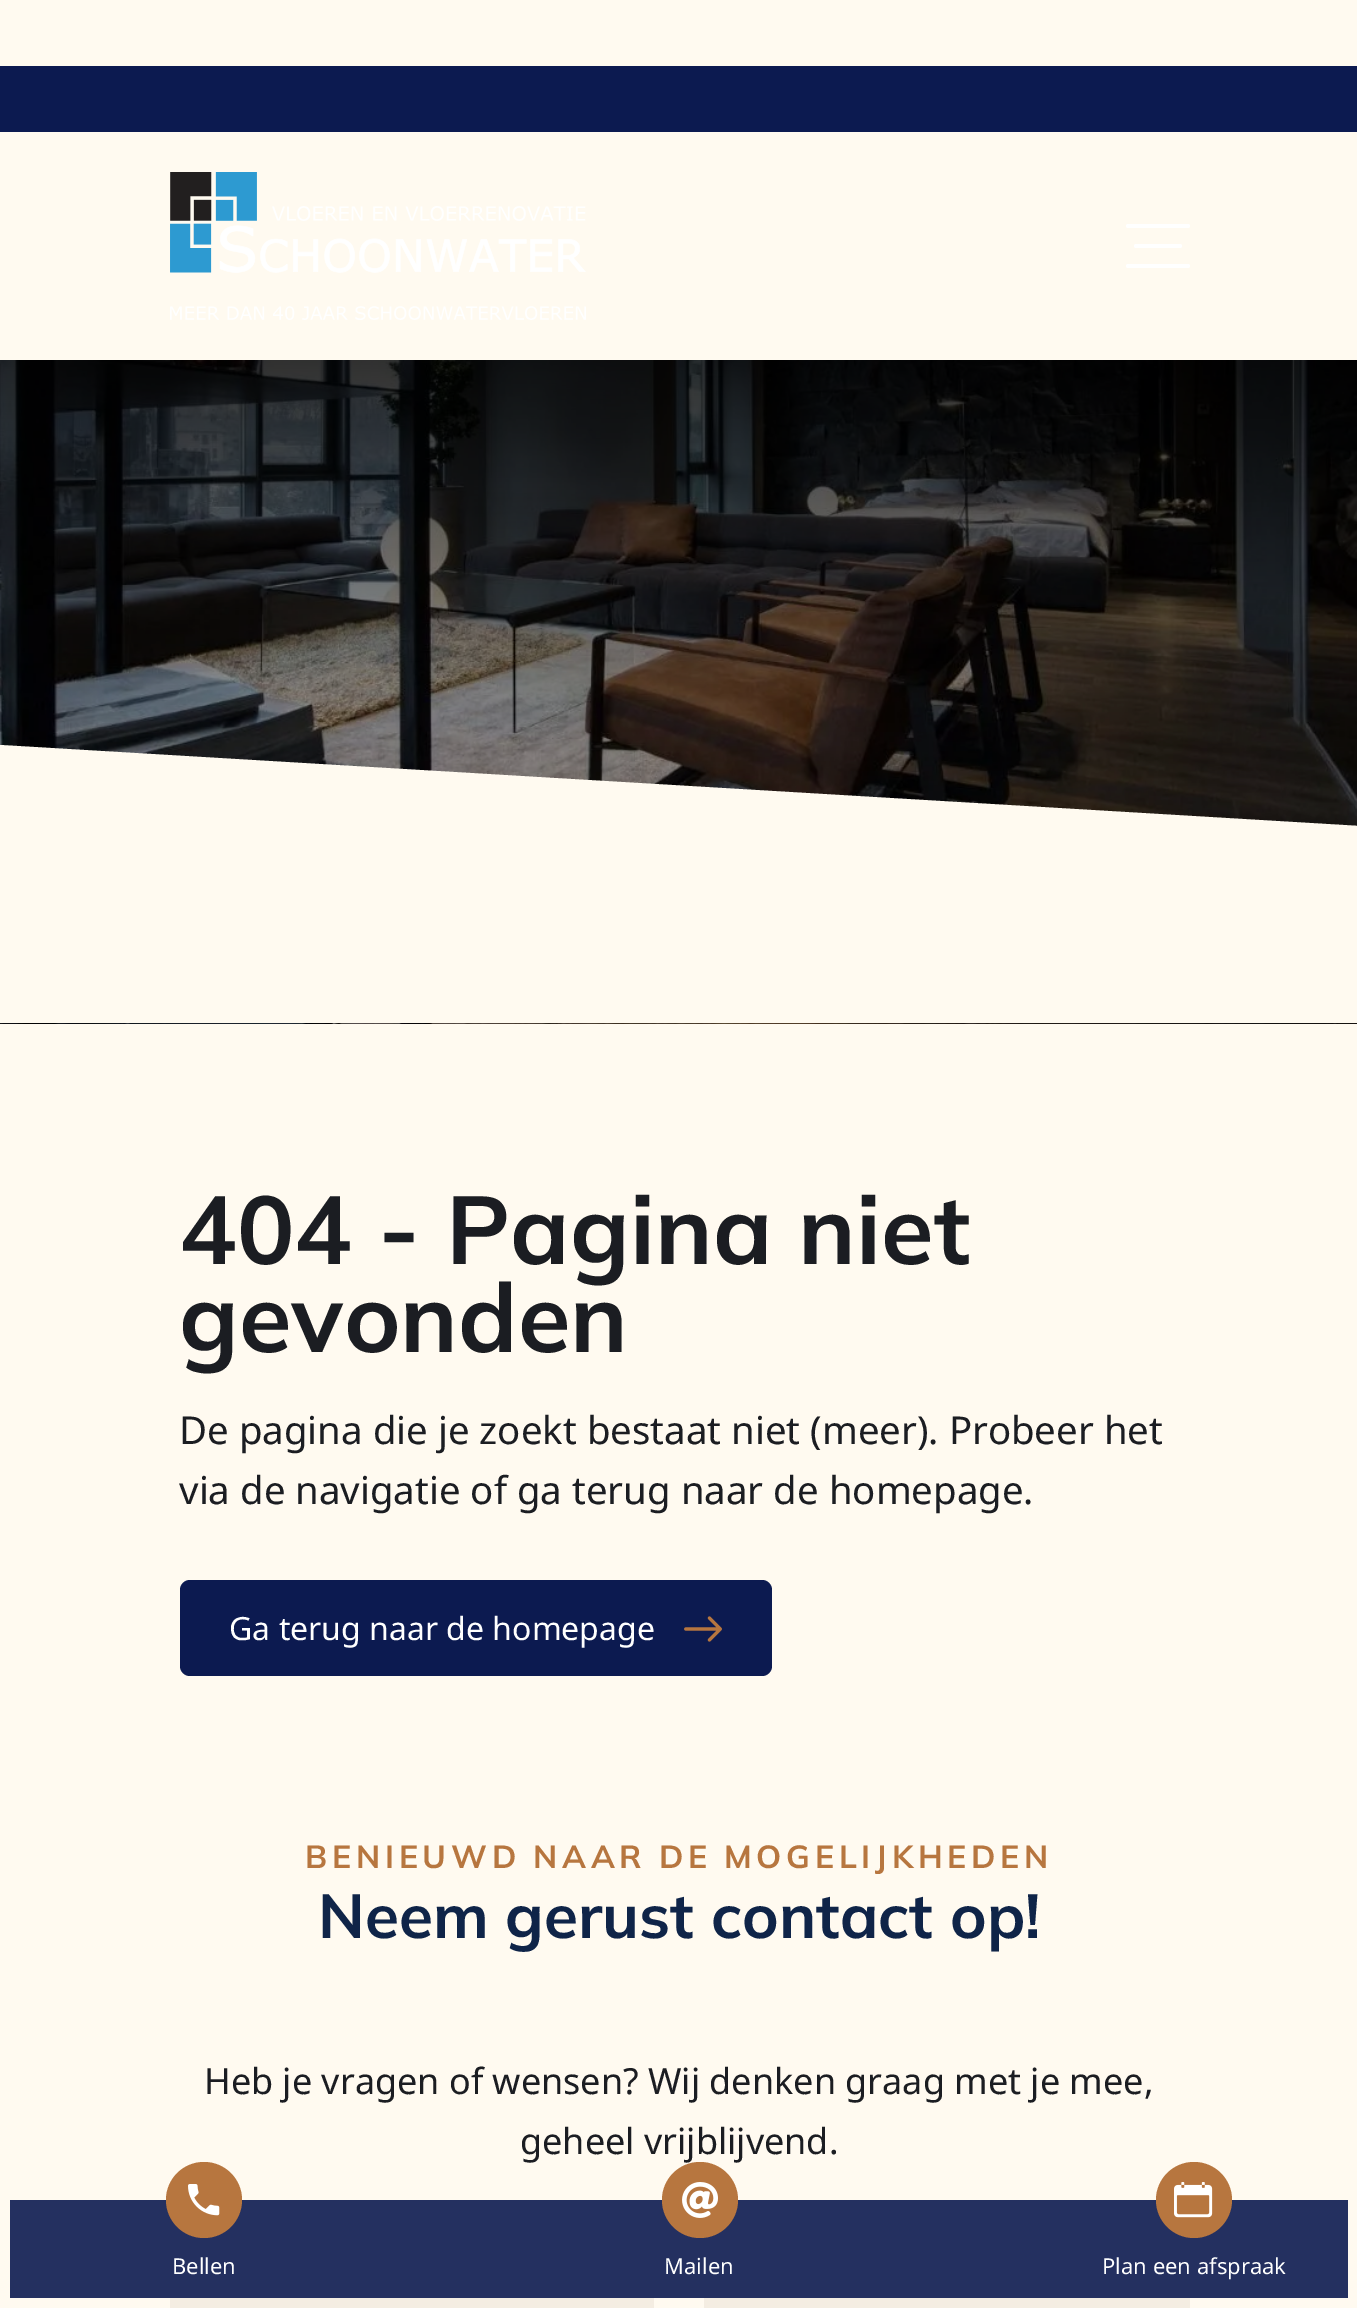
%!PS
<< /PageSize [1357 2308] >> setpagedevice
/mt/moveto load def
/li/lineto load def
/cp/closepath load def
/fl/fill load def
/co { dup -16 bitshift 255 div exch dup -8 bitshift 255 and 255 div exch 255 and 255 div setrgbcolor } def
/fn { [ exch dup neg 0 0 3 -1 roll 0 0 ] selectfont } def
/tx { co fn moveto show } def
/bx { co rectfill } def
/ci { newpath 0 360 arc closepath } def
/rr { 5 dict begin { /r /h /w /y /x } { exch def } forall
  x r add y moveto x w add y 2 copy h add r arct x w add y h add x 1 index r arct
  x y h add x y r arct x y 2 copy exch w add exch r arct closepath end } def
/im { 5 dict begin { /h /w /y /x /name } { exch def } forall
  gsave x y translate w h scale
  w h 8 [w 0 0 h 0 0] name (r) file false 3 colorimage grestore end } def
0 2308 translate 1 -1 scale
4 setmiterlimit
0 0 1357 2308 16#FFFAF0 bx
10 2200 1338 98 16#243060 bx
0 66 1357 66 16#0C1A50 bx
(media/1.raw) 170 172 416 148 im
16#FFFFFF co
1134 244 48 4 2 rr fl
1126 224 64 4 2 rr fl
1126 264 64 4 2 rr fl
(media/2.raw) 0 360 1357 664 im
16#FFFAF0 co
0 745 mt 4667 1023 li 0 1023 li cp fl
16#0C1A50 co
180 1580 592 96 10 rr fl
(media/3.raw) 684 1616 38 26 im
170 2298 484 10 16#F4EDE2 bx
704 2298 486 10 16#F4EDE2 bx
16#B7763F co
204 2200 38 ci fl
(media/4.raw) 188 2184 32 32 im
1194 2200 38 ci fl
(media/6.raw) 1174 2182 39 36 im
(404 - Pagina niet) 179 1264 /Mulish-Bold 96 16#1B1D22 tx
(gevonden) 179 1352 /Mulish-Bold 96 16#1B1D22 tx
(De pagina die je zoekt bestaat niet \(meer\). Probeer het) 179 1444 /NotoSans-Regular 38.4 16#1B1D22 tx
(via de navigatie of ga terug naar de homepage.) 179 1504 /NotoSans-Regular 38.4 16#1B1D22 tx
(Ga terug naar de homepage) 229 1640 /NotoSans-Regular 32 16#FFFFFF tx
/Mulish-Bold 32 fn
16#B7763F co
305 1868 mt -1.5 0 32 4.8 0 (BENIEUWD NAAR DE MOGELIJKHEDEN) awidthshow
(Neem gerust contact op!) 318 1938 /Mulish-Bold 62 16#0F2448 tx
(Heb je vragen of wensen? Wij denken graag met je mee,) 204 2094 /NotoSans-Regular 36 16#1B1D22 tx
(geheel vrijblijvend.) 520 2154 /NotoSans-Regular 36 16#1B1D22 tx
(Bellen) 172 2274 /NotoSans-Regular 22 16#FFFFFF tx
16#B7763F co
700 2200 38 ci fl
(media/5.raw) 682 2182 36 36 im
(Mailen) 664 2274 /NotoSans-Regular 22 16#FFFFFF tx
(Plan een afspraak) 1102 2274 /NotoSans-Regular 22 16#FFFFFF tx
showpage
